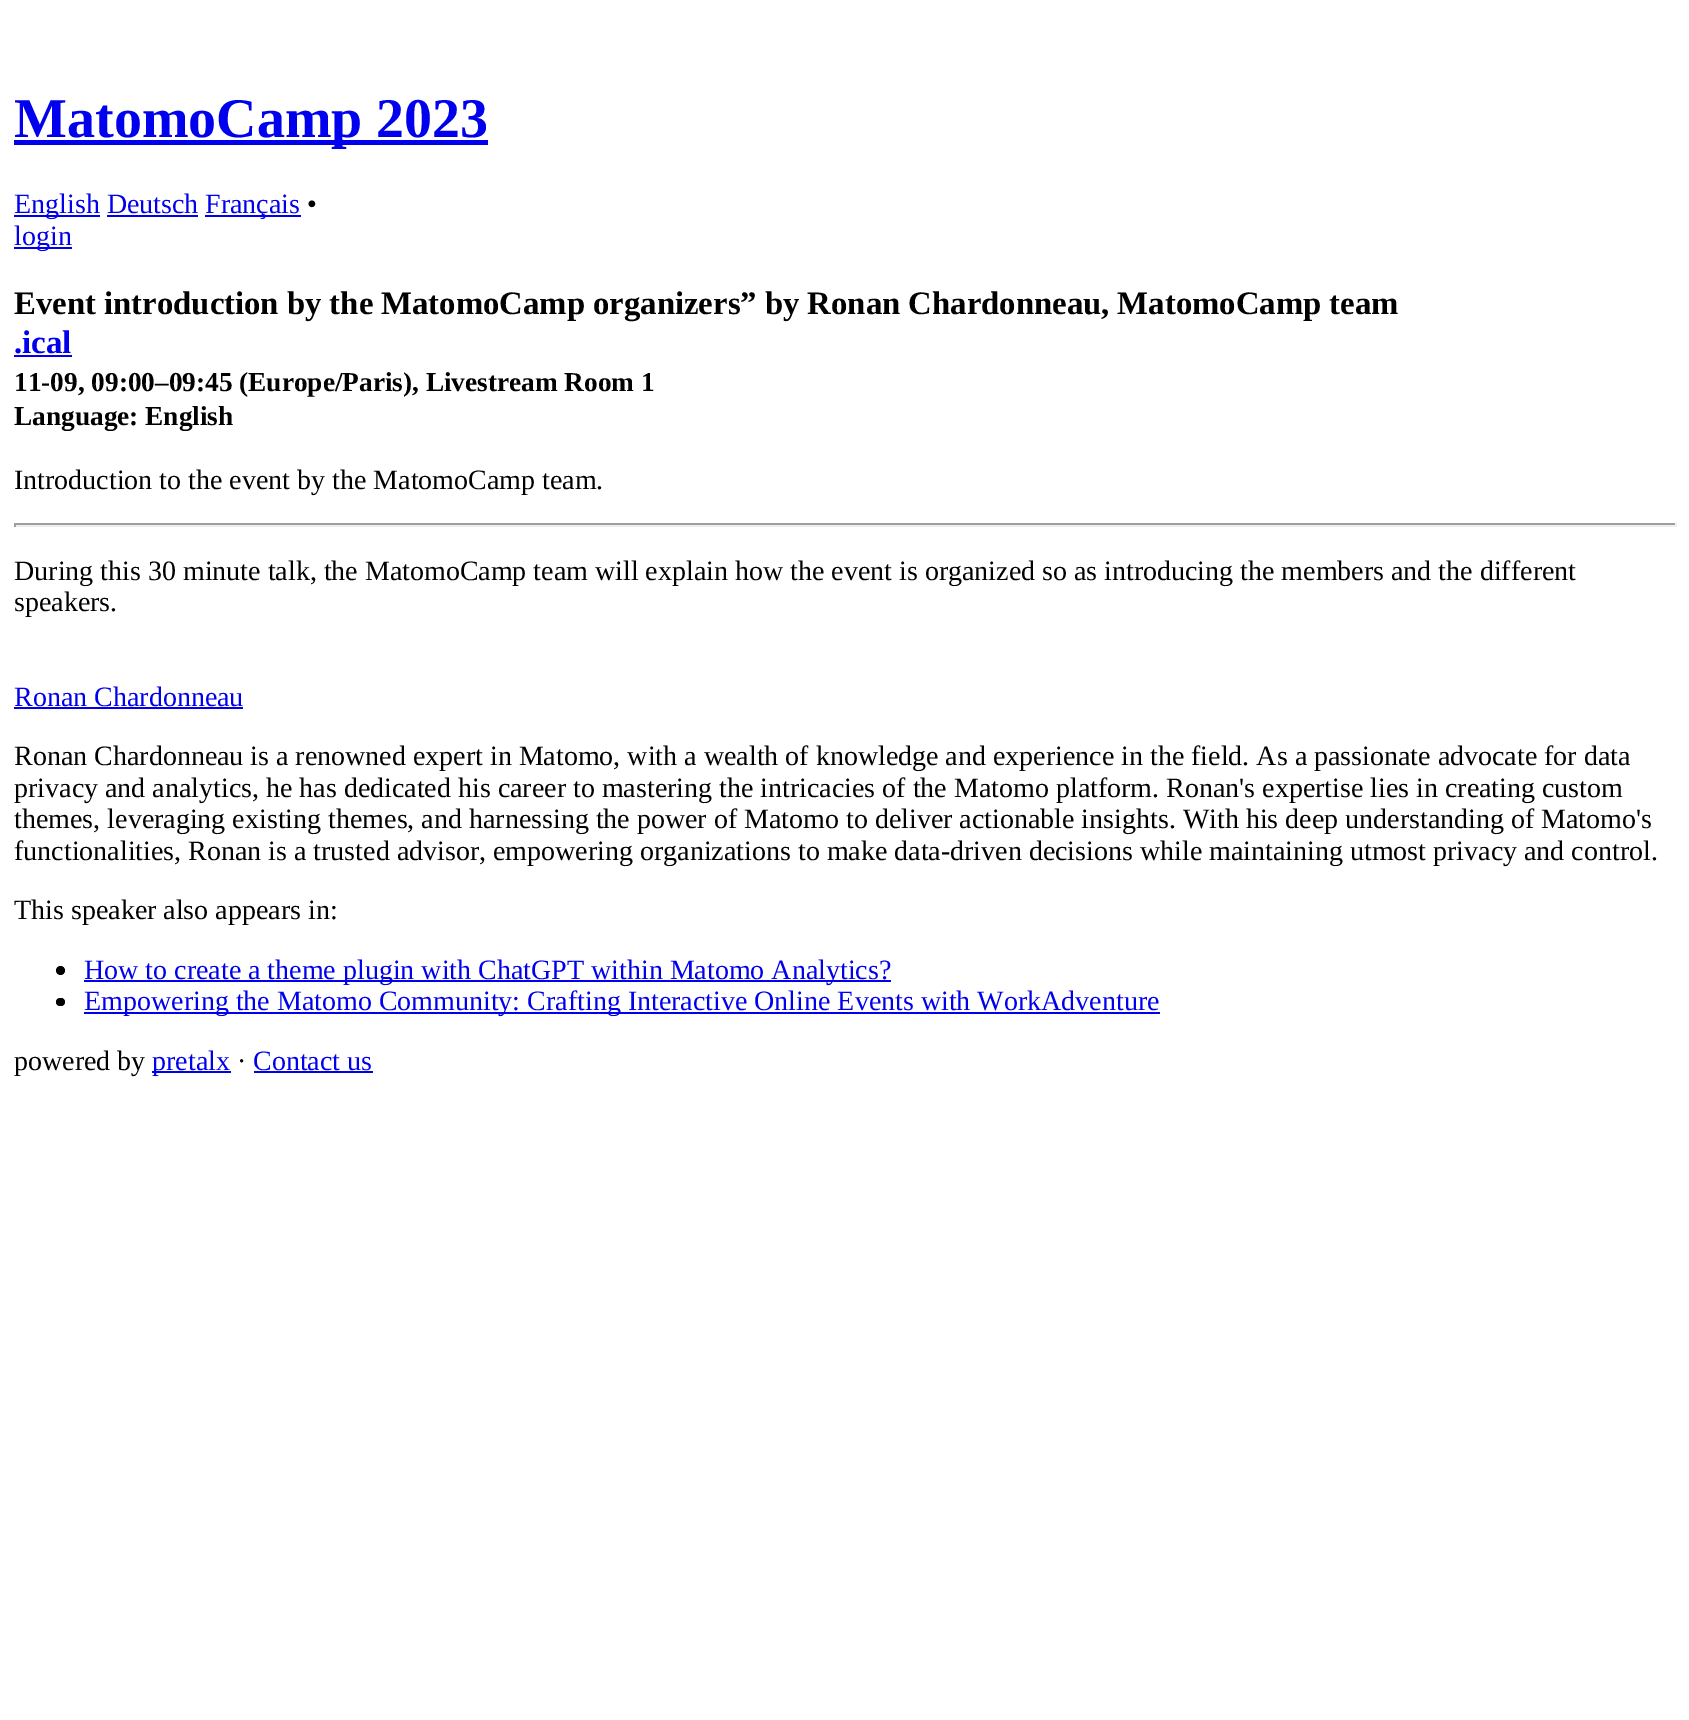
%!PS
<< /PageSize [1689 1720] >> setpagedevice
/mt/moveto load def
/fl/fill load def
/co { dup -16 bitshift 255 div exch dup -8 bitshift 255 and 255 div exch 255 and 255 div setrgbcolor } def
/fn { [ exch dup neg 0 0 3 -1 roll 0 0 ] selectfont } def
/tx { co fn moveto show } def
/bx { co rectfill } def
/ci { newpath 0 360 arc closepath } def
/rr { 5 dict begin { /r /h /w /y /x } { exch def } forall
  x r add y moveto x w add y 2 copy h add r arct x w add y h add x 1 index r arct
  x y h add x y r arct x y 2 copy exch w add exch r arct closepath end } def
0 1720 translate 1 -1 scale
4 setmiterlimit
0 0 1689 1720 16#FFFFFF bx
14 140 474 5 16#0000EE bx
14 215 86 2 16#0000EE bx
205 215 96 2 16#0000EE bx
107 215 91 2 16#0000EE bx
14 247 58 2 16#0000EE bx
14 355 58 2 16#0000EE bx
14 523 1663 2 16#9F9F9F bx
1675 523 2 4 16#EEEEEE bx
14 525 1663 2 16#EEEEEE bx
14 523 2 4 16#9F9F9F bx
14 707 229 2 16#0000EE bx
16#000000 co
60.5 970.5 4.5 ci fl
84 980 807 2 16#0000EE bx
16#000000 co
56 998 9 8 4 rr fl
84 1012 1076 2 16#0000EE bx
152 1071 79 2 16#0000EE bx
254 1071 119 2 16#0000EE bx
(MatomoCamp 2023) 14 137 /LiberationSerif-Bold 56 16#0000EE tx
(English Deutsch) 14 213 /LiberationSerif-Regular 28 16#0000EE tx
(Français) 205 213 /LiberationSerif-Regular 28 16#0000EE tx
(•) 307 213 /LiberationSerif-Regular 28 16#000000 tx
(login) 14 245 /LiberationSerif-Regular 28 16#0000EE tx
/LiberationSerif-Bold 32.75 fn
16#000000 co
14 314 mt -.1 0 32 (Event introduction by the MatomoCamp organizers” by Ronan Chardonneau, MatomoCamp team) widthshow
(.ical) 14 353 /LiberationSerif-Bold 32.75 16#0000EE tx
(11-09, 09:00–09:45 \(Europe/Paris\), Livestream Room 1) 14 391 /LiberationSerif-Bold 27.3 16#000000 tx
(Language: English) 14 425 /LiberationSerif-Bold 27.3 16#000000 tx
(Introduction to the event by the MatomoCamp team.) 14 489 /LiberationSerif-Regular 28 16#000000 tx
(During this 30 minute talk, the MatomoCamp team will explain how the event is organized so as introducing the members and the different) 14 580 /LiberationSerif-Regular 28 16#000000 tx
(speakers.) 14 611 /LiberationSerif-Regular 28 16#000000 tx
(Ronan Chardonneau) 14 706 /LiberationSerif-Regular 28 16#0000EE tx
(Ronan Chardonneau is a renowned expert in Matomo, with a wealth of knowledge and experience in the field. As a passionate advocate for data) 14 765 /LiberationSerif-Regular 28 16#000000 tx
(privacy and analytics, he has dedicated his career to mastering the intricacies of the Matomo platform. Ronan's expertise lies in creating custom) 14 797 /LiberationSerif-Regular 28 16#000000 tx
(themes, leveraging existing themes, and harnessing the power of Matomo to deliver actionable insights. With his deep understanding of Matomo's) 14 828 /LiberationSerif-Regular 28 16#000000 tx
(functionalities, Ronan is a trusted advisor, empowering organizations to make data-driven decisions while maintaining utmost privacy and control.) 14 860 /LiberationSerif-Regular 28 16#000000 tx
(This speaker also appears in:) 14 919 /LiberationSerif-Regular 28 16#000000 tx
(How to create a theme plugin with ChatGPT within Matomo Analytics?) 84 979 /LiberationSerif-Regular 28 16#0000EE tx
(Empowering the Matomo Community: Crafting Interactive Online Events with WorkAdventure) 84 1010 /LiberationSerif-Regular 28 16#0000EE tx
(powered by) 14 1070 /LiberationSerif-Regular 28 16#000000 tx
(pretalx) 152 1070 /LiberationSerif-Regular 28 16#0000EE tx
(·) 237 1070 /LiberationSerif-Regular 28 16#000000 tx
(Contact us) 253 1070 /LiberationSerif-Regular 28 16#0000EE tx
showpage
